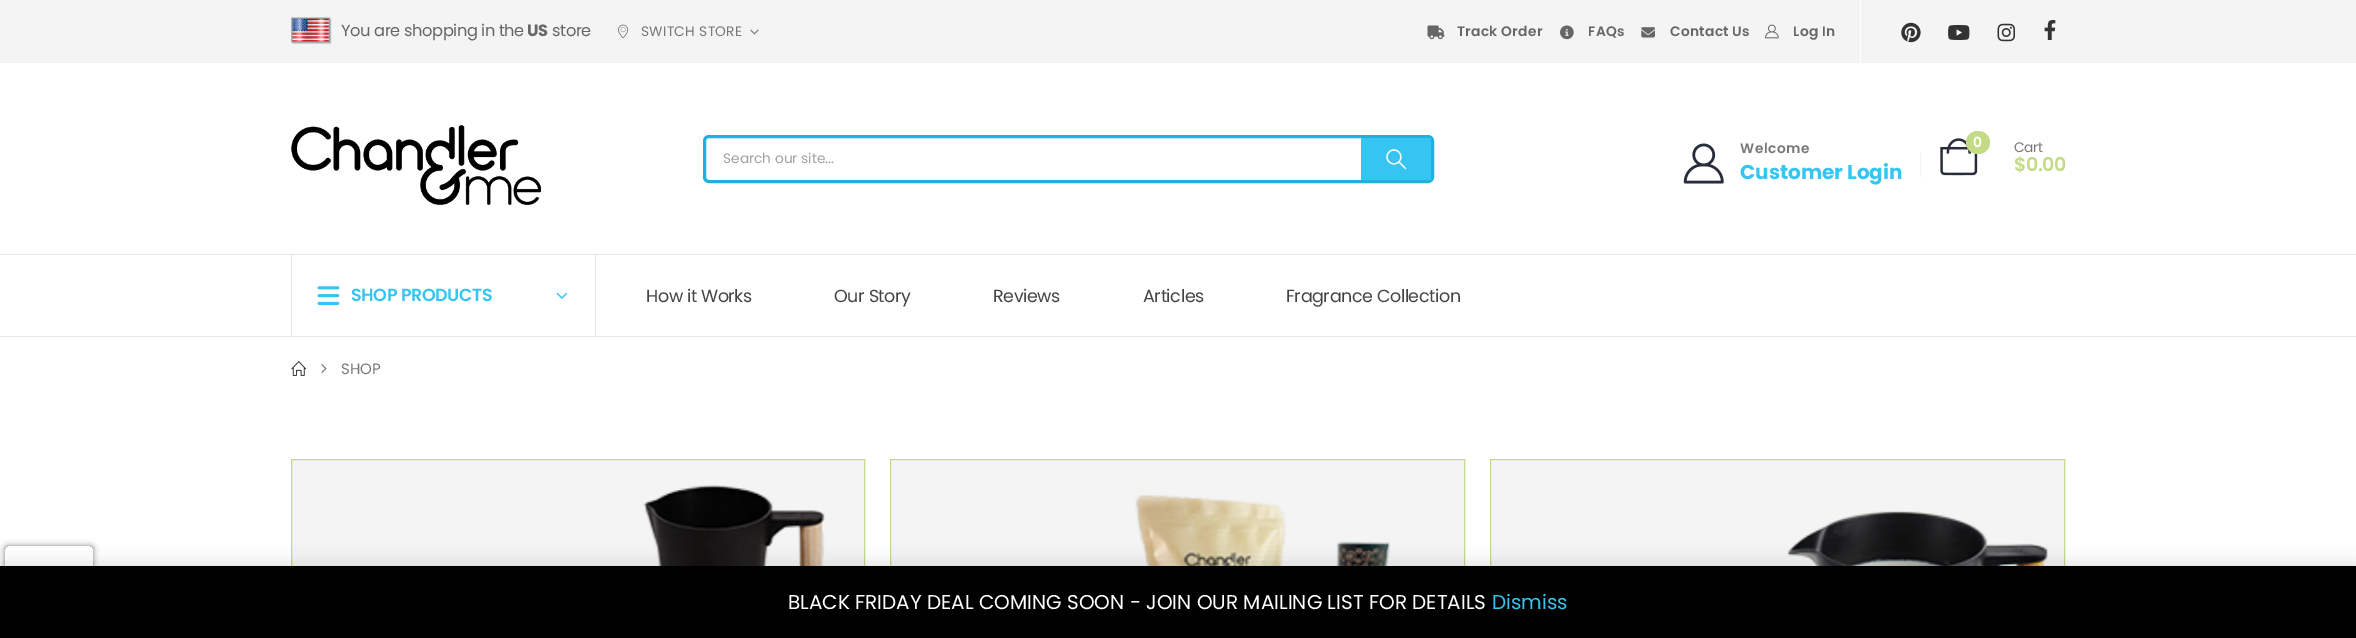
%!PS
<< /PageSize [2356 638] /PageUsesTransparency true >> setpagedevice
/mt/moveto load def
/li/lineto load def
/ct/curveto load def
/cp/closepath load def
/fl/fill load def
/st/stroke load def
/gs/gsave load def
/gr/grestore load def
/lw/setlinewidth load def
/co { dup -16 bitshift 255 div exch dup -8 bitshift 255 and 255 div exch 255 and 255 div setrgbcolor } def
/fn { [ exch dup neg 0 0 3 -1 roll 0 0 ] selectfont } def
/tx { co fn moveto show } def
/bx { co rectfill } def
/al { dup .setfillconstantalpha .setstrokeconstantalpha } def
/rr { 5 dict begin { /r /h /w /y /x } { exch def } forall
  x r add y moveto x w add y 2 copy h add r arct x w add y h add x 1 index r arct
  x y h add x y r arct x y 2 copy exch w add exch r arct closepath end } def
/sh { 12 dict begin { /a /b /q /h /w /y /x } { exch def } forall gsave /was 0 def
  9 -2 -9 { dup b mul 4 div /e exch def 1 sub .425 mul 2.718 exch exp 1 add a .99 .min exch div /now exch def
    1 1 now sub 1 was sub div sub al /was now def
    w h .min e 2 mul add 0 gt { x e sub y e sub w e 2 mul add h e 2 mul add
      q e add b .6 mul add w h .min 2 div e add .min 0 .max rr fill } if } for grestore end } def
/im { 5 dict begin { /h /w /y /x /name } { exch def } forall
  gsave x y translate w h scale
  w h 8 [w 0 0 h 0 0] name (r) file false 3 colorimage grestore end } def
0 .pushpdf14devicefilter
0 638 translate 1 -1 scale
4 setmiterlimit
0 0 2356 638 16#FFFFFF bx
0 0 2356 63 16#F4F4F4 bx
(media/1.raw) 291 17 41 27 im
(media/2.raw) 618 24 11 15 im
(media/3.raw) 750 29 9 6 im
(media/4.raw) 1427 25 18 15 im
(media/5.raw) 1560 25 14 15 im
(media/6.raw) 1641 27 14 11 im
(media/7.raw) 1765 24 14 15 im
1860 0 1 63 16#FFFFFF bx
(media/8.raw) 1901 22 20 21 im
(media/9.raw) 1948 25 22 15 im
(media/10.raw) 1997 23 18 19 im
(media/11.raw) 2044 20 12 20 im
(media/12.raw) 291 125 250 80 im
16#1FB0DE co
3 lw
704.5 136.5 728 45 4.5 rr st
1361 138 70 42 16#36C4F1 bx
(media/13.raw) 1386 149 21 21 im
(media/14.raw) 1683 143 41 41 im
1920 153 1 25 16#F5F5F5 bx
(media/15.raw) 1940 138 38 38 im
16#C4DB86 co
1966 131 24 23 11.5 rr fl
0 254 2356 1 16#E7E7E7 bx
0 336 2356 1 16#E7E7E7 bx
595 255 1 81 16#E7E7E7 bx
291 255 1 81 16#E7E7E7 bx
(media/16.raw) 317 286 23 19 im
(media/17.raw) 556 292 12 7 im
(media/18.raw) 291 361 16 15 im
(media/19.raw) 321 364 6 9 im
292 460 572 106 16#F4F4F4 bx
16#C4DB86 co
1 lw
291.5 459.5 573 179 rectstroke
(media/20.raw) 643 485 182 81 im
891 460 573 106 16#F4F4F4 bx
16#C4DB86 co
890.5 459.5 574 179 rectstroke
(media/21.raw) 1135 495 256 71 im
1491 460 573 106 16#F4F4F4 bx
16#C4DB86 co
1490.5 459.5 574 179 rectstroke
(media/22.raw) 1787 511 261 55 im
gs
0 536 mt 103 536 li 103 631 li 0 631 li cp 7.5 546 mt 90.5 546 li 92 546 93 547 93 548.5 ct 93 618.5 li 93 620 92 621 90.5 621 ct 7.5 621 li 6 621 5 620 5 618.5 ct 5 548.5 li 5 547 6 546 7.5 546 ct cp eoclip newpath
16#808080 co
5 546 88 75 2.5 3 1 sh
gr
16#000000 co
0 568 2356 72 0 10 .2 sh
0 566 2356 72 16#000000 bx
/Poppins-Regular 16.25 fn
16#666666 co
341 36 mt -.4 0 (You are shopping in the) ashow
/Poppins-Bold 16.25 fn
527 36 mt -.4 0 (US) ashow
/Poppins-Regular 16.25 fn
552 36 mt -.4 0 (store) ashow
/Poppins-Regular 13.75 fn
16#777777 co
641 36 mt .3 0 (SWITCH STORE) ashow
/Poppins-SemiBold 13.75 fn
16#666666 co
1457 36 mt .3 0 (Track Order) ashow
1588 36 mt .3 0 (FAQs) ashow
1670 36 mt .3 0 (Contact Us) ashow
1793 36 mt .3 0 (Log In) ashow
(Search our site...) 723 163 /Poppins-Regular 13.75 16#A0A0A0 tx
/Poppins-SemiBold 13.75 fn
16#777777 co
1740 153 mt .5 0 (Welcome) ashow
(Customer Login) 1740 179 /Poppins-Bold 20 16#36C4F1 tx
(0) 1973 147 /Poppins-SemiBold 14 16#FFFFFF tx
/Poppins-Regular 13.75 fn
16#777777 co
2014 152 mt -.5 0 (Cart) ashow
/Poppins-SemiBold 19 fn
16#C4DB86 co
2014 171 mt -.5 0 ($0.00) ashow
/Poppins-SemiBold 17.5 fn
16#36C4F1 co
351 301 mt -.4 0 (SHOP PRODUCTS) ashow
/Poppins-Regular 17.5 fn
16#444444 co
646 302 mt -.4 0 (How it Works) ashow
834 302 mt -.4 0 (Our Story) ashow
993 302 mt -.4 0 (Reviews) ashow
1143 302 mt -.4 0 (Articles) ashow
1286 302 mt -.4 0 (Fragrance Collection) ashow
(SHOP) 341 374 /Poppins-Regular 15 16#777777 tx
(BLACK FRIDAY DEAL COMING SOON - JOIN OUR MAILING LIST FOR DETAILS) 788 609 /Poppins-Regular 20 16#FFFFFF tx
(Dismiss) 1492 609 /Poppins-Regular 20 16#36C4F1 tx
.poppdf14devicefilter showpage
